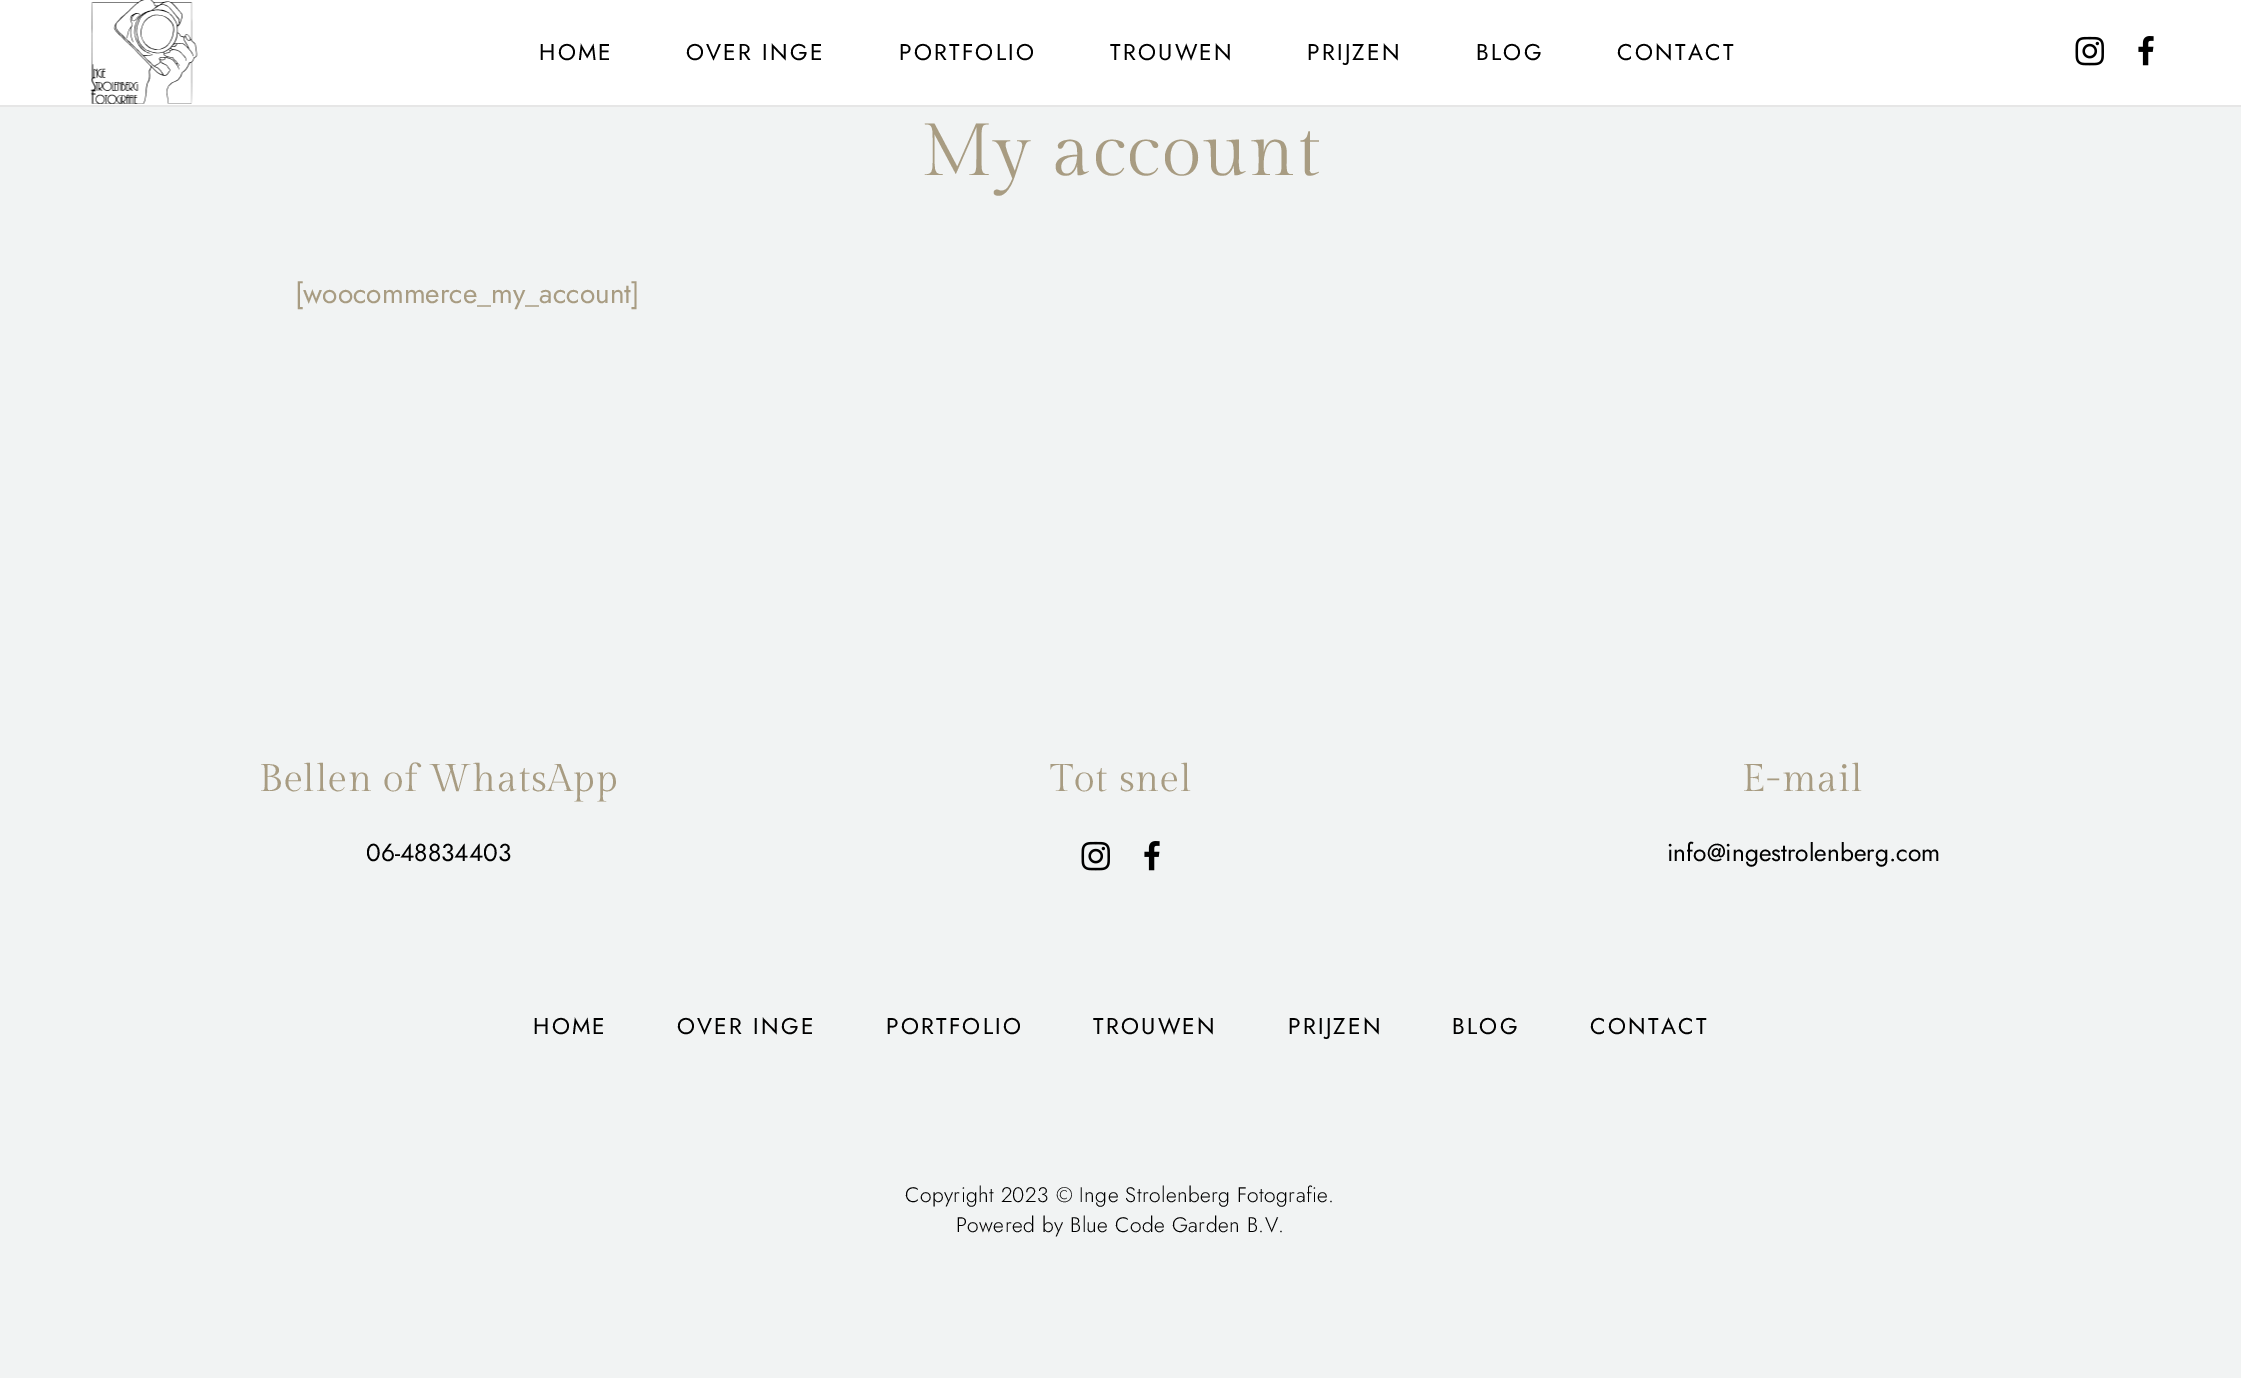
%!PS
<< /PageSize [2241 1378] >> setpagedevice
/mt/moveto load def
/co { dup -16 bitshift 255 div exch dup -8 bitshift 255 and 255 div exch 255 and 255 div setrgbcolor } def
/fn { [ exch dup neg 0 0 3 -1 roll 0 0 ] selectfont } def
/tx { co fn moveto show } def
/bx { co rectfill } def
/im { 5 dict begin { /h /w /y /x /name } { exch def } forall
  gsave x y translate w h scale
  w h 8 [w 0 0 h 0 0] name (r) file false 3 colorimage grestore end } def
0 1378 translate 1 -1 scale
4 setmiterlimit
0 0 2241 1378 16#F1F3F3 bx
0 0 2241 105 16#FFFFFF bx
0 105 2241 2 16#E6E6E6 bx
(media/1.raw) 90 0 108 104 im
(media/2.raw) 2075 36 29 30 im
(media/3.raw) 2138 36 16 30 im
(media/4.raw) 1081 841 29 30 im
(media/5.raw) 1144 841 16 30 im
/Jost-Regular 22.75 fn
16#000000 co
539 60 mt 2.25 0 (HOME) ashow
686 60 mt 2.25 0 (OVER INGE) ashow
899 60 mt 2.25 0 (PORTFOLIO) ashow
1110 60 mt 2.25 0 (TROUWEN) ashow
1307 60 mt 2.25 0 (PRIJZEN) ashow
1476 60 mt 2.25 0 (BLOG) ashow
1617 60 mt 2.25 0 (CONTACT) ashow
/GildaDisplay-Regular 73.5 fn
16#A89C82 co
921 175 mt 1.5 0 (My account) ashow
([woocommerce_my_account]) 295 303 /Jost-Regular 28 16#A89C82 tx
/GildaDisplay-Regular 38.5 fn
259 791 mt .75 0 (Bellen of WhatsApp) ashow
(06-48834403) 366 861 /Jost-Regular 24.5 16#000000 tx
/GildaDisplay-Regular 38.5 fn
16#A89C82 co
1050 791 mt .75 0 (Tot snel) ashow
1742 791 mt .75 0 (E-mail) ashow
(info@ingestrolenberg.com) 1667 861 /Jost-Regular 24.5 16#000000 tx
/Jost-Regular 22.75 fn
533 1034 mt 2.25 0 (HOME) ashow
677 1034 mt 2.25 0 (OVER INGE) ashow
886 1034 mt 2.25 0 (PORTFOLIO) ashow
1093 1034 mt 2.25 0 (TROUWEN) ashow
1288 1034 mt 2.25 0 (PRIJZEN) ashow
1452 1034 mt 2.25 0 (BLOG) ashow
1590 1034 mt 2.25 0 (CONTACT) ashow
/Jost-Light 21 fn
905 1202 mt .4 0 (Copyright 2023 © Inge Strolenberg Fotografie.) ashow
956 1232 mt .4 0 (Powered by Blue Code Garden B.V.) ashow
showpage
